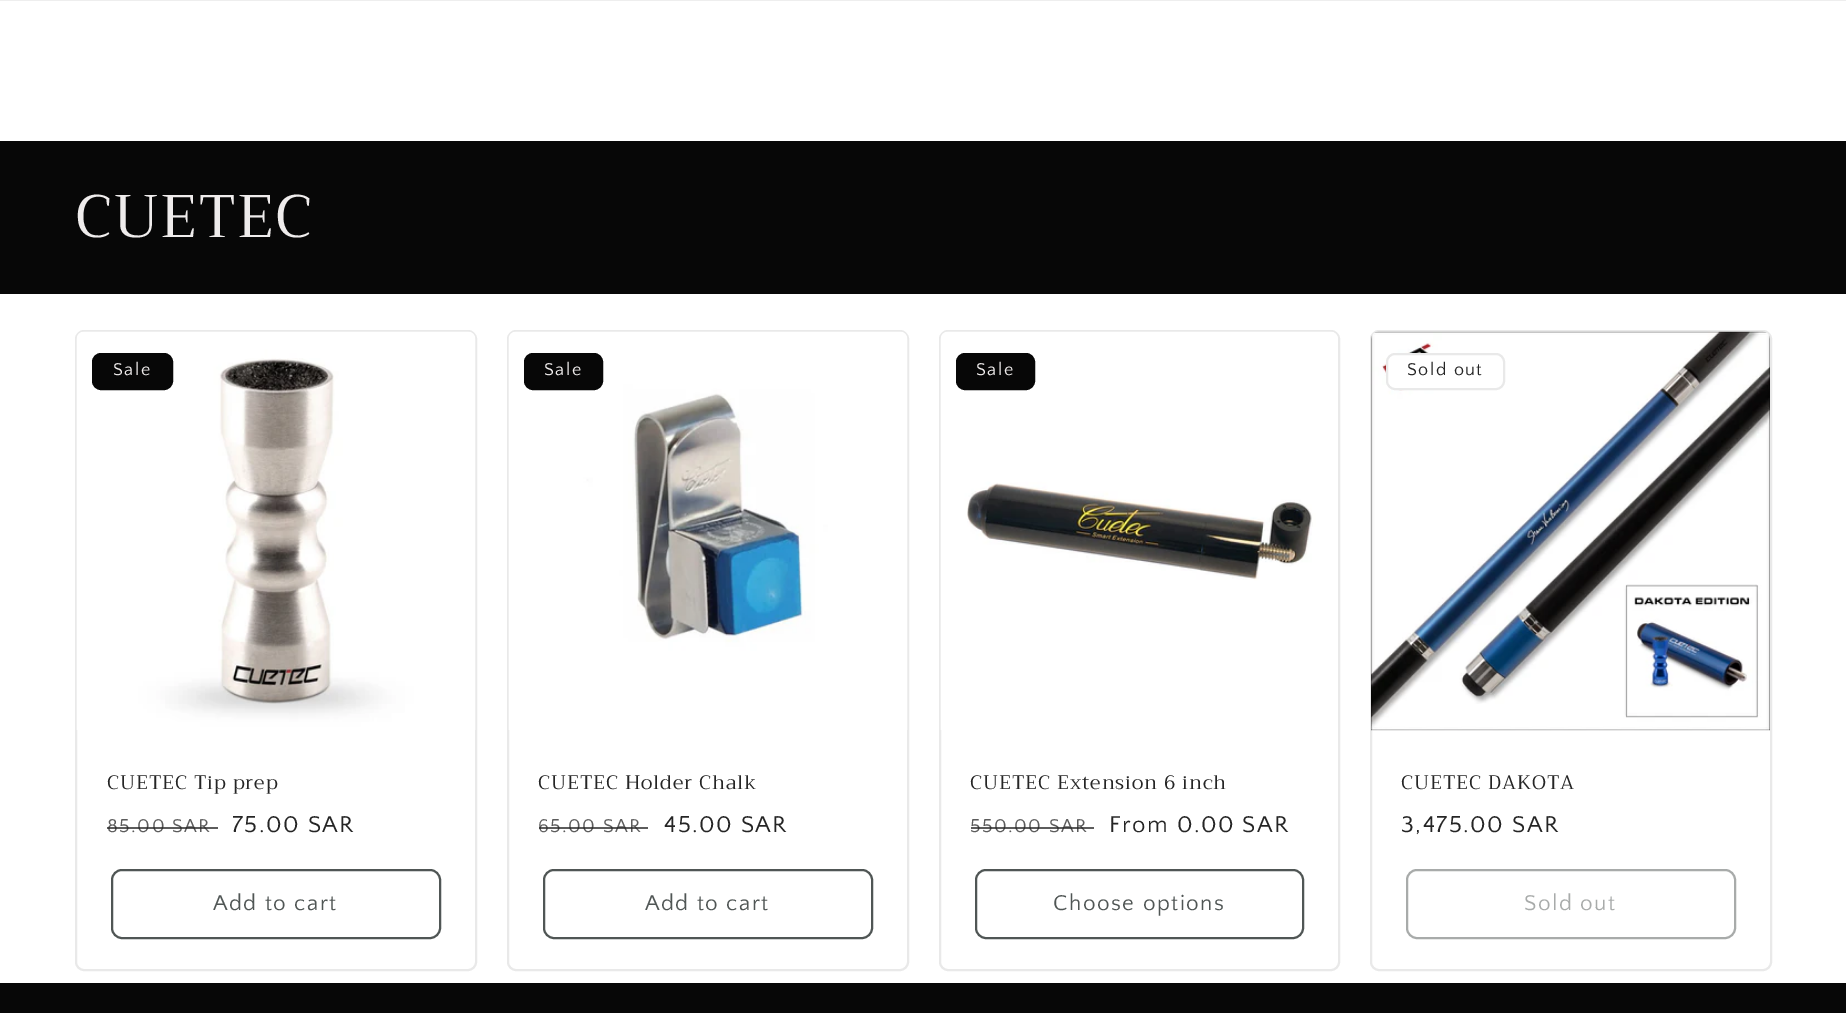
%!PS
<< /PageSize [1846 1013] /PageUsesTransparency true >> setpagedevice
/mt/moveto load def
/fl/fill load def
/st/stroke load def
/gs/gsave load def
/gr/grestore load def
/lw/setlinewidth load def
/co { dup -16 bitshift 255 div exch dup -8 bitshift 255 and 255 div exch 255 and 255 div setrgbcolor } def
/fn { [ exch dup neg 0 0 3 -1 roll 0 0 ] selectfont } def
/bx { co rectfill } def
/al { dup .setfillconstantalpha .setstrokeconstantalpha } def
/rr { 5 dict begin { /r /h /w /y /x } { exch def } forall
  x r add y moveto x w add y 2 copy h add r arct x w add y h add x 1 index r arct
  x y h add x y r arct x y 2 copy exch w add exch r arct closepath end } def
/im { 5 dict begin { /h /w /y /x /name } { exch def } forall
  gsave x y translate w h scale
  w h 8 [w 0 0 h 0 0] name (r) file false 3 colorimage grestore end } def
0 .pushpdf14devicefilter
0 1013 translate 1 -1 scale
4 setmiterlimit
0 0 1846 1013 16#FFFFFF bx
0 0 1846 1 16#EEEEEE bx
0 141 1846 153 16#070707 bx
16#E9E9E9 co
2 lw
76 331 400 639 8 rr st
(media/1.raw) 76 331 400 399 im
16#070707 co
93 354 79 35 8 rr gs fl gr
st
16#505655 co
112 870 328 68 10 rr st
16#E9E9E9 co
508 331 400 639 8 rr st
(media/2.raw) 508 331 400 399 im
16#070707 co
525 354 77 35 8 rr gs fl gr
st
16#505655 co
544 870 328 68 10 rr st
16#E9E9E9 co
940 331 399 639 8 rr st
(media/3.raw) 940 331 398 399 im
16#070707 co
957 354 77 35 8 rr gs fl gr
st
16#505655 co
976 870 327 68 10 rr st
16#E9E9E9 co
1371 331 400 639 8 rr st
(media/4.raw) 1371 331 399 400 im
16#FFFFFF co
1387 354 117 35 8 rr gs fl gr
16#E9E9E9 co
st
16#A8ABAA co
1407 870 328 68 10 rr st
0 983 1846 30 16#070707 bx
/Trirong-Regular 60 fn
16#EFECEC co
75 237 mt .9 0 (CUETEC) ashow
/QuattrocentoSans-Regular 18 fn
113 375 mt 1.5 0 (Sale) ashow
/Trirong-Regular 19.5 fn
16#252525 co
107 789 mt .9 0 (CUETEC Tip prep) ashow
/QuattrocentoSans-Regular 19.5 fn
16#5C5C5C co
107 832 mt 1.5 0 (85.00 SAR) ashow
0.75 al
107 827 111 2 16#252525 bx
/QuattrocentoSans-Regular 24 fn
1 al
232 832 mt 1.5 0 (75.00 SAR) ashow
/QuattrocentoSans-Regular 22.5 fn
16#505655 co
213 910 mt 1.5 0 (Add to cart) ashow
/QuattrocentoSans-Regular 18 fn
16#EFECEC co
544 375 mt 1.5 0 (Sale) ashow
/Trirong-Regular 19.5 fn
16#252525 co
538 789 mt .9 0 (CUETEC Holder Chalk) ashow
/QuattrocentoSans-Regular 19.5 fn
16#5C5C5C co
538 832 mt 1.5 0 (65.00 SAR) ashow
0.75 al
539 827 109 2 16#252525 bx
/QuattrocentoSans-Regular 24 fn
1 al
664 832 mt 1.5 0 (45.00 SAR) ashow
/QuattrocentoSans-Regular 22.5 fn
16#505655 co
645 910 mt 1.5 0 (Add to cart) ashow
/QuattrocentoSans-Regular 18 fn
16#EFECEC co
976 375 mt 1.5 0 (Sale) ashow
/Trirong-Regular 19.5 fn
16#252525 co
970 789 mt .9 0 (CUETEC Extension 6 inch) ashow
/QuattrocentoSans-Regular 19.5 fn
16#5C5C5C co
970 832 mt 1.5 0 (550.00 SAR) ashow
0.75 al
971 827 123 2 16#252525 bx
/QuattrocentoSans-Regular 24 fn
1 al
1109 832 mt 1.5 0 (From 0.00 SAR) ashow
/QuattrocentoSans-Regular 22.5 fn
16#505655 co
1053 910 mt 1.5 0 (Choose options) ashow
/QuattrocentoSans-Regular 18 fn
16#252525 co
1407 375 mt 1.5 0 (Sold out) ashow
/Trirong-Regular 19.5 fn
1401 789 mt .9 0 (CUETEC DAKOTA) ashow
/QuattrocentoSans-Regular 24 fn
1401 832 mt 1.5 0 (3,475.00 SAR) ashow
/QuattrocentoSans-Regular 22.5 fn
16#A8ABAA co
1524 910 mt 1.5 0 (Sold out) ashow
.poppdf14devicefilter showpage
